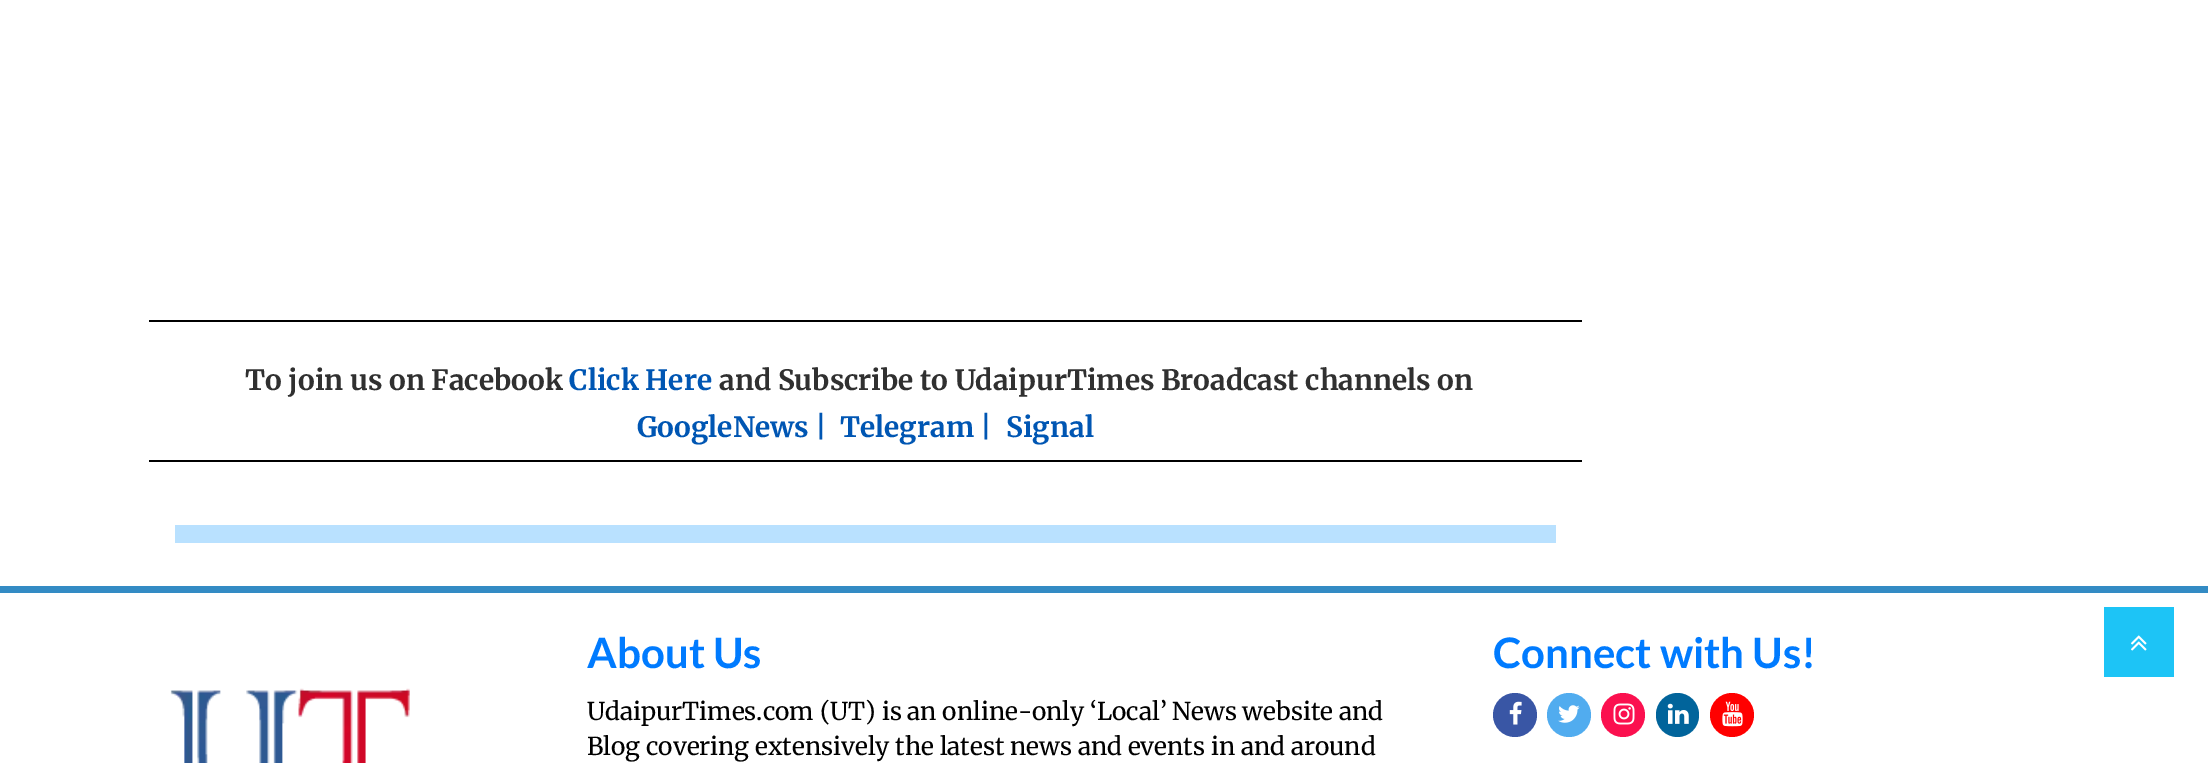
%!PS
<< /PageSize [2208 763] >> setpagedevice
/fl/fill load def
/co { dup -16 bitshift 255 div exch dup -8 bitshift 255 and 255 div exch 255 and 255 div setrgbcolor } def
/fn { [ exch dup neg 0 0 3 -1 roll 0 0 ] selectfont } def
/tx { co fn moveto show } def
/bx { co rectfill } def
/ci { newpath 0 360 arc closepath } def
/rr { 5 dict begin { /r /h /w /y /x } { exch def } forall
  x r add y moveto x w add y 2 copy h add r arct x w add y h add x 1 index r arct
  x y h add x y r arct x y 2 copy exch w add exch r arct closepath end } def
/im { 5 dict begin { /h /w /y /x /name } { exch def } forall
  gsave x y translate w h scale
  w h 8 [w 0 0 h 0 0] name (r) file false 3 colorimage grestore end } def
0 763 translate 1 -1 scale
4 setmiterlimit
0 0 2208 763 16#FFFFFF bx
149 320 1433 2 16#000000 bx
149 460 1433 2 16#000000 bx
175 525 1381 18 16#B9E1FF bx
0 586 2208 7 16#338BC4 bx
16#3956A5 co
1515 715 22 ci fl
(media/1.raw) 1509 701 13 24 im
16#51ACEF co
1569 715 22 ci fl
(media/2.raw) 1558 705 22 18 im
16#FB104F co
1623 715 22 ci fl
(media/3.raw) 1613 703 22 22 im
16#01649B co
1656 693 43 44 21.5 rr fl
(media/4.raw) 1667 703 22 21 im
16#FF0000 co
1732 715 22 ci fl
(media/5.raw) 1722 701 21 26 im
(media/6.raw) 170 688 240 75 im
2104 607 70 70 16#1DC4F6 bx
(media/7.raw) 2131 635 16 16 im
(To join us on Facebook) 245 390 /Merriweather-Bold 28 16#303030 tx
(Click Here) 569 390 /Merriweather-Bold 28 16#0056B3 tx
(and Subscribe to UdaipurTimes Broadcast channels on) 719 390 /Merriweather-Bold 28 16#303030 tx
(GoogleNews |) 637 437 /Merriweather-Bold 28 16#0056B3 tx
(Telegram |) 840 437 /Merriweather-Bold 28 16#0056B3 tx
(Signal) 1006 437 /Merriweather-Bold 28 16#0056B3 tx
(About Us) 587 668 /Lato-Bold 42 16#007BFF tx
(UdaipurTimes.com \(UT\) is an online-only ‘Local’ News website and) 587 720 /Merriweather-Regular 24.5 16#000000 tx
(Blog covering extensively the latest news and events in and around) 587 755 /Merriweather-Regular 24.5 16#000000 tx
(Connect with Us!) 1493 668 /Lato-Bold 42 16#007BFF tx
showpage
